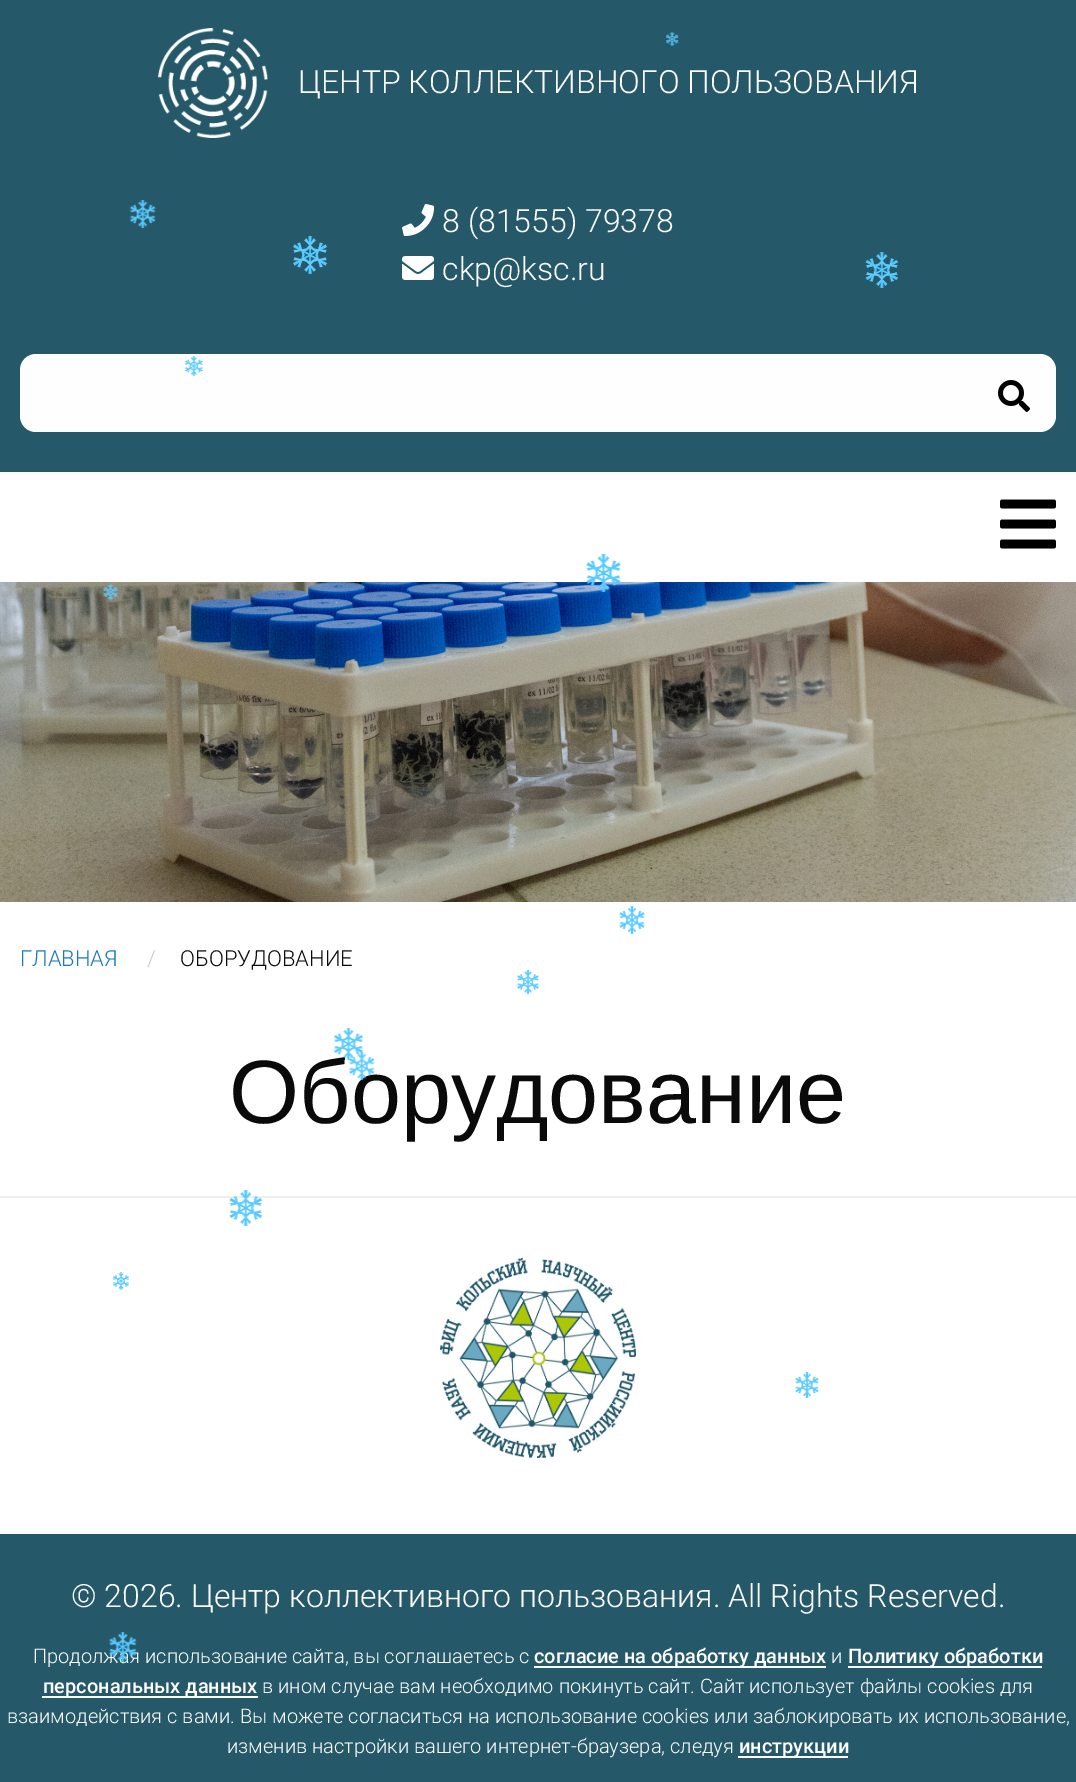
%!PS
<< /PageSize [1076 1782] >> setpagedevice
/fl/fill load def
/co { dup -16 bitshift 255 div exch dup -8 bitshift 255 and 255 div exch 255 and 255 div setrgbcolor } def
/fn { [ exch dup neg 0 0 3 -1 roll 0 0 ] selectfont } def
/tx { co fn moveto show } def
/bx { co rectfill } def
/rr { 5 dict begin { /r /h /w /y /x } { exch def } forall
  x r add y moveto x w add y 2 copy h add r arct x w add y h add x 1 index r arct
  x y h add x y r arct x y 2 copy exch w add exch r arct closepath end } def
/im { 5 dict begin { /h /w /y /x /name } { exch def } forall
  gsave x y translate w h scale
  w h 8 [w 0 0 h 0 0] name (r) file false 3 colorimage grestore end } def
0 1782 translate 1 -1 scale
4 setmiterlimit
0 0 1076 1782 16#FFFFFF bx
0 0 1076 472 16#255969 bx
(media/1.raw) 666 32 13 14 im
(media/2.raw) 129 200 27 28 im
(media/3.raw) 158 28 110 110 im
(media/4.raw) 402 204 33 32 im
(media/5.raw) 402 256 32 24 im
16#FEFEFE co
20 354 1036 78 16 rr fl
(media/6.raw) 998 380 32 32 im
(media/7.raw) 1000 499 56 50 im
(media/8.raw) 0 582 1076 320 im
(media/9.raw) 293 236 35 38 im
(media/10.raw) 865 252 34 36 im
(media/11.raw) 184 356 19 20 im
(media/12.raw) 103 584 15 16 im
(media/13.raw) 586 554 35 38 im
(media/14.raw) 619 906 26 28 im
(media/15.raw) 517 970 22 24 im
0 1196 1076 2 16#EEEEEE bx
(media/18.raw) 229 1190 34 36 im
(media/19.raw) 440 1258 196 200 im
(media/20.raw) 113 1272 16 18 im
(media/21.raw) 795 1372 24 26 im
0 1534 1076 248 16#255969 bx
534 1666 292 2 16#FFFFFF bx
848 1666 194 2 16#FFFFFF bx
42 1696 216 2 16#FFFFFF bx
738 1756 110 2 16#FFFFFF bx
(ЦЕНТР КОЛЛЕКТИВНОГО ПОЛЬЗОВАНИЯ) 298 93 /Roboto-Light 32 16#FFFFFF tx
(8 \(81555\) 79378) 442 232 /Roboto-Light 32 16#FFFFFF tx
(ckp@ksc.ru) 442 280 /Roboto-Light 32 16#FFFFFF tx
(ГЛАВНАЯ) 20 966 /Roboto-Light 22 16#1779BA tx
(/) 147 966 /Roboto-Light 22 16#CACACA tx
(ОБОРУДОВАНИЕ) 180 966 /Roboto-Light 22 16#0A0A0A tx
(Оборудование) 229 1123 /LiberationSans-Regular 90 16#0A0A0A tx
(media/16.raw) 333 1028 31 32 im
(media/17.raw) 348 1052 27 28 im
(© 2026. Центр коллективного пользования. All Rights Reserved.) 71 1607 /Roboto-Light 32 16#FFFFFF tx
(Продолжая использование сайта, вы соглашаетесь с) 33 1663 /Roboto-Light 20 16#FFFFFF tx
(согласие на обработку данных) 534 1663 /Roboto-Medium 20 16#FFFFFF tx
(и) 831 1663 /Roboto-Light 20 16#FFFFFF tx
(Политику обработки) 848 1663 /Roboto-Medium 20 16#FFFFFF tx
(персональных данных) 43 1693 /Roboto-Medium 20 16#FFFFFF tx
(в ином случае вам необходимо покинуть сайт. Сайт использует файлы cookies для) 262 1693 /Roboto-Light 20 16#FFFFFF tx
(взаимодействия с вами. Вы можете согласиться на использование cookies или заблокировать их использование,) 7 1723 /Roboto-Light 20 16#FFFFFF tx
(изменив настройки вашего интернет-браузера, следуя) 227 1753 /Roboto-Light 20 16#FFFFFF tx
(инструкции) 739 1753 /Roboto-Medium 20 16#FFFFFF tx
(media/22.raw) 109 1632 28 30 im
showpage
